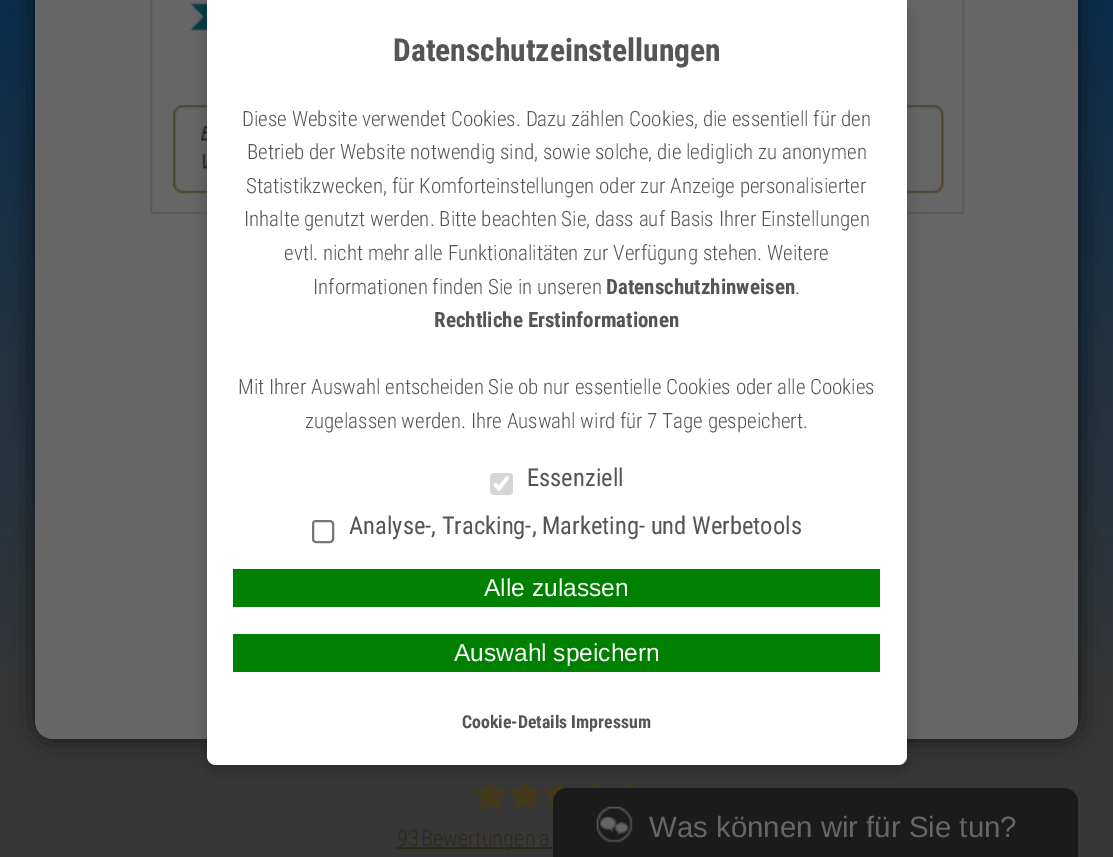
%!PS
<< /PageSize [1113 857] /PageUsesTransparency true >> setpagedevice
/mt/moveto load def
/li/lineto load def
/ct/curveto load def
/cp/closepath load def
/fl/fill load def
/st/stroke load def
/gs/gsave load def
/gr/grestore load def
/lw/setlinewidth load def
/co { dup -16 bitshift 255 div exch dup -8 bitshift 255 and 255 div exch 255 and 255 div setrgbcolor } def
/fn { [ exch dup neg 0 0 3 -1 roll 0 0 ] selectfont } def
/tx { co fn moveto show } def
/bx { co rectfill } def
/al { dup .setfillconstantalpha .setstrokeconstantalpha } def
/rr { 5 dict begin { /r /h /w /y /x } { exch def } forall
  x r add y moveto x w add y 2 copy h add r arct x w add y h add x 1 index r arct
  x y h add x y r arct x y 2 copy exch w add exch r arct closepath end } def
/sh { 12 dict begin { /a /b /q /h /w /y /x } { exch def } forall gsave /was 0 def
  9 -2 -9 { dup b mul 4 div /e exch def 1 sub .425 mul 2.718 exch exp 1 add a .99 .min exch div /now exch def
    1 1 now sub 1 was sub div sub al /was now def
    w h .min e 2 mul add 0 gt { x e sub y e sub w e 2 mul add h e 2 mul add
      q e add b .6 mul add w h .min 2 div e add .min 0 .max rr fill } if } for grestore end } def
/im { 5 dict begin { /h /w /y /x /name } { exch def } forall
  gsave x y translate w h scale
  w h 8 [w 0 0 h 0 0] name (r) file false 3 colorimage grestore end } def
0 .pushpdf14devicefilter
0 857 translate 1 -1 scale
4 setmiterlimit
0 0 1113 857 16#FFFFFF bx
gs 0 0 mt 1113 0 li 1113 857 li 0 857 li cp clip newpath
<< /ShadingType 2 /ColorSpace /DeviceRGB /Coords [556 0 557 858] /Extend [true true] /Function << /FunctionType 3 /Domain [0 1] /Functions [<< /FunctionType 2 /Domain [0 1] /C0 [.047 .18 .298] /C1 [.216 .216 .216] /N 1 >> << /FunctionType 2 /Domain [0 1] /C0 [.216 .216 .216] /C1 [.216 .216 .216] /N 1 >>] /Bounds [.82] /Encode [0 1 0 1] >> >> shfill gr
16#000000 co
35 -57 1043 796 18 13 .65 sh
16#666666 co
35 -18 mt 1078 -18 li 1078 721 li 1078 731 1070 739 1060 739 ct 53 739 li 43 739 35 731 35 721 ct cp fl
(media/1.raw) 150 0 815 214 im
(media/2.raw) 473 779 34 31 im
(media/2.raw) 508 779 34 31 im
(media/3.raw) 543 779 22 31 im
(media/4.raw) 590 779 10 9 im
(media/4.raw) 625 779 10 9 im
16#1B1B1B co
567 788 mt 1064 788 li 1071.5 788 1078 794.5 1078 802 ct 1078 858 li 553 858 li 553 802 li 553 794.5 559.5 788 567 788 ct cp fl
16#000000 co
207 7 700 765 9 7 .2 sh
16#FFFFFF co
207 0 mt 907 0 li 907 756 li 907 761 903 765 898 765 ct 216 765 li 211 765 207 761 207 756 ct cp fl
16#D6D6D6 co
490 473 23 22 4 rr fl
16#FFFFFF co
3.6 lw
494.5 484 mt 499 488.5 li 508 477 li st
16#767676 co
2 lw
313 521 20 21 3 rr st
233 569 647 38 16#008000 bx
233 634 647 38 16#008000 bx
397 847 156 2 16#2E281A bx
(media/5.raw) 596 806 37 37 im
(Datenschutzeinstellungen) 393 61 /RobotoCondensed-Bold 31.5 16#555555 tx
(Diese Website verwendet Cookies. Dazu zählen Cookies, die essentiell für den) 242 126 /RobotoCondensed-Light 21 16#555555 tx
(Betrieb der Website notwendig sind, sowie solche, die lediglich zu anonymen) 247 159 /RobotoCondensed-Light 21 16#555555 tx
(Statistikzwecken, für Komforteinstellungen oder zur Anzeige personalisierter) 246 193 /RobotoCondensed-Light 21 16#555555 tx
(Inhalte genutzt werden. Bitte beachten Sie, dass auf Basis Ihrer Einstellungen) 244 226 /RobotoCondensed-Light 21 16#555555 tx
(evtl. nicht mehr alle Funktionalitäten zur Verfügung stehen. Weitere) 284 260 /RobotoCondensed-Light 21 16#555555 tx
(Informationen finden Sie in unseren) 313 294 /RobotoCondensed-Light 21 16#555555 tx
(Datenschutzhinweisen) 606 294 /RobotoCondensed-Bold 21 16#555555 tx
(.) 795 294 /RobotoCondensed-Light 21 16#555555 tx
(Rechtliche Erstinformationen) 434 327 /RobotoCondensed-Bold 21 16#555555 tx
(Mit Ihrer Auswahl entscheiden Sie ob nur essentielle Cookies oder alle Cookies) 238 394 /RobotoCondensed-Light 21 16#555555 tx
(zugelassen werden. Ihre Auswahl wird für 7 Tage gespeichert.) 305 428 /RobotoCondensed-Light 21 16#555555 tx
(Essenziell) 527 486 /RobotoCondensed-Regular 24.5 16#555555 tx
(Analyse-, Tracking-, Marketing- und Werbetools) 349 534 /RobotoCondensed-Regular 24.5 16#555555 tx
(Alle zulassen) 484 596 /LiberationSans-Regular 24.5 16#FFFFFF tx
(Auswahl speichern) 454 661 /LiberationSans-Regular 24.5 16#FFFFFF tx
(Cookie-Details Impressum) 462 728 /RobotoCondensed-Bold 17.8 16#555555 tx
(93) 397 846 /RobotoCondensed-Light 22.5 16#2E281A tx
421 846 mt -1 0 32 (Bewertungen a) widthshow
(Was können wir für Sie tun?) 649 837 /LiberationSans-Regular 29.4 16#666666 tx
.poppdf14devicefilter showpage
